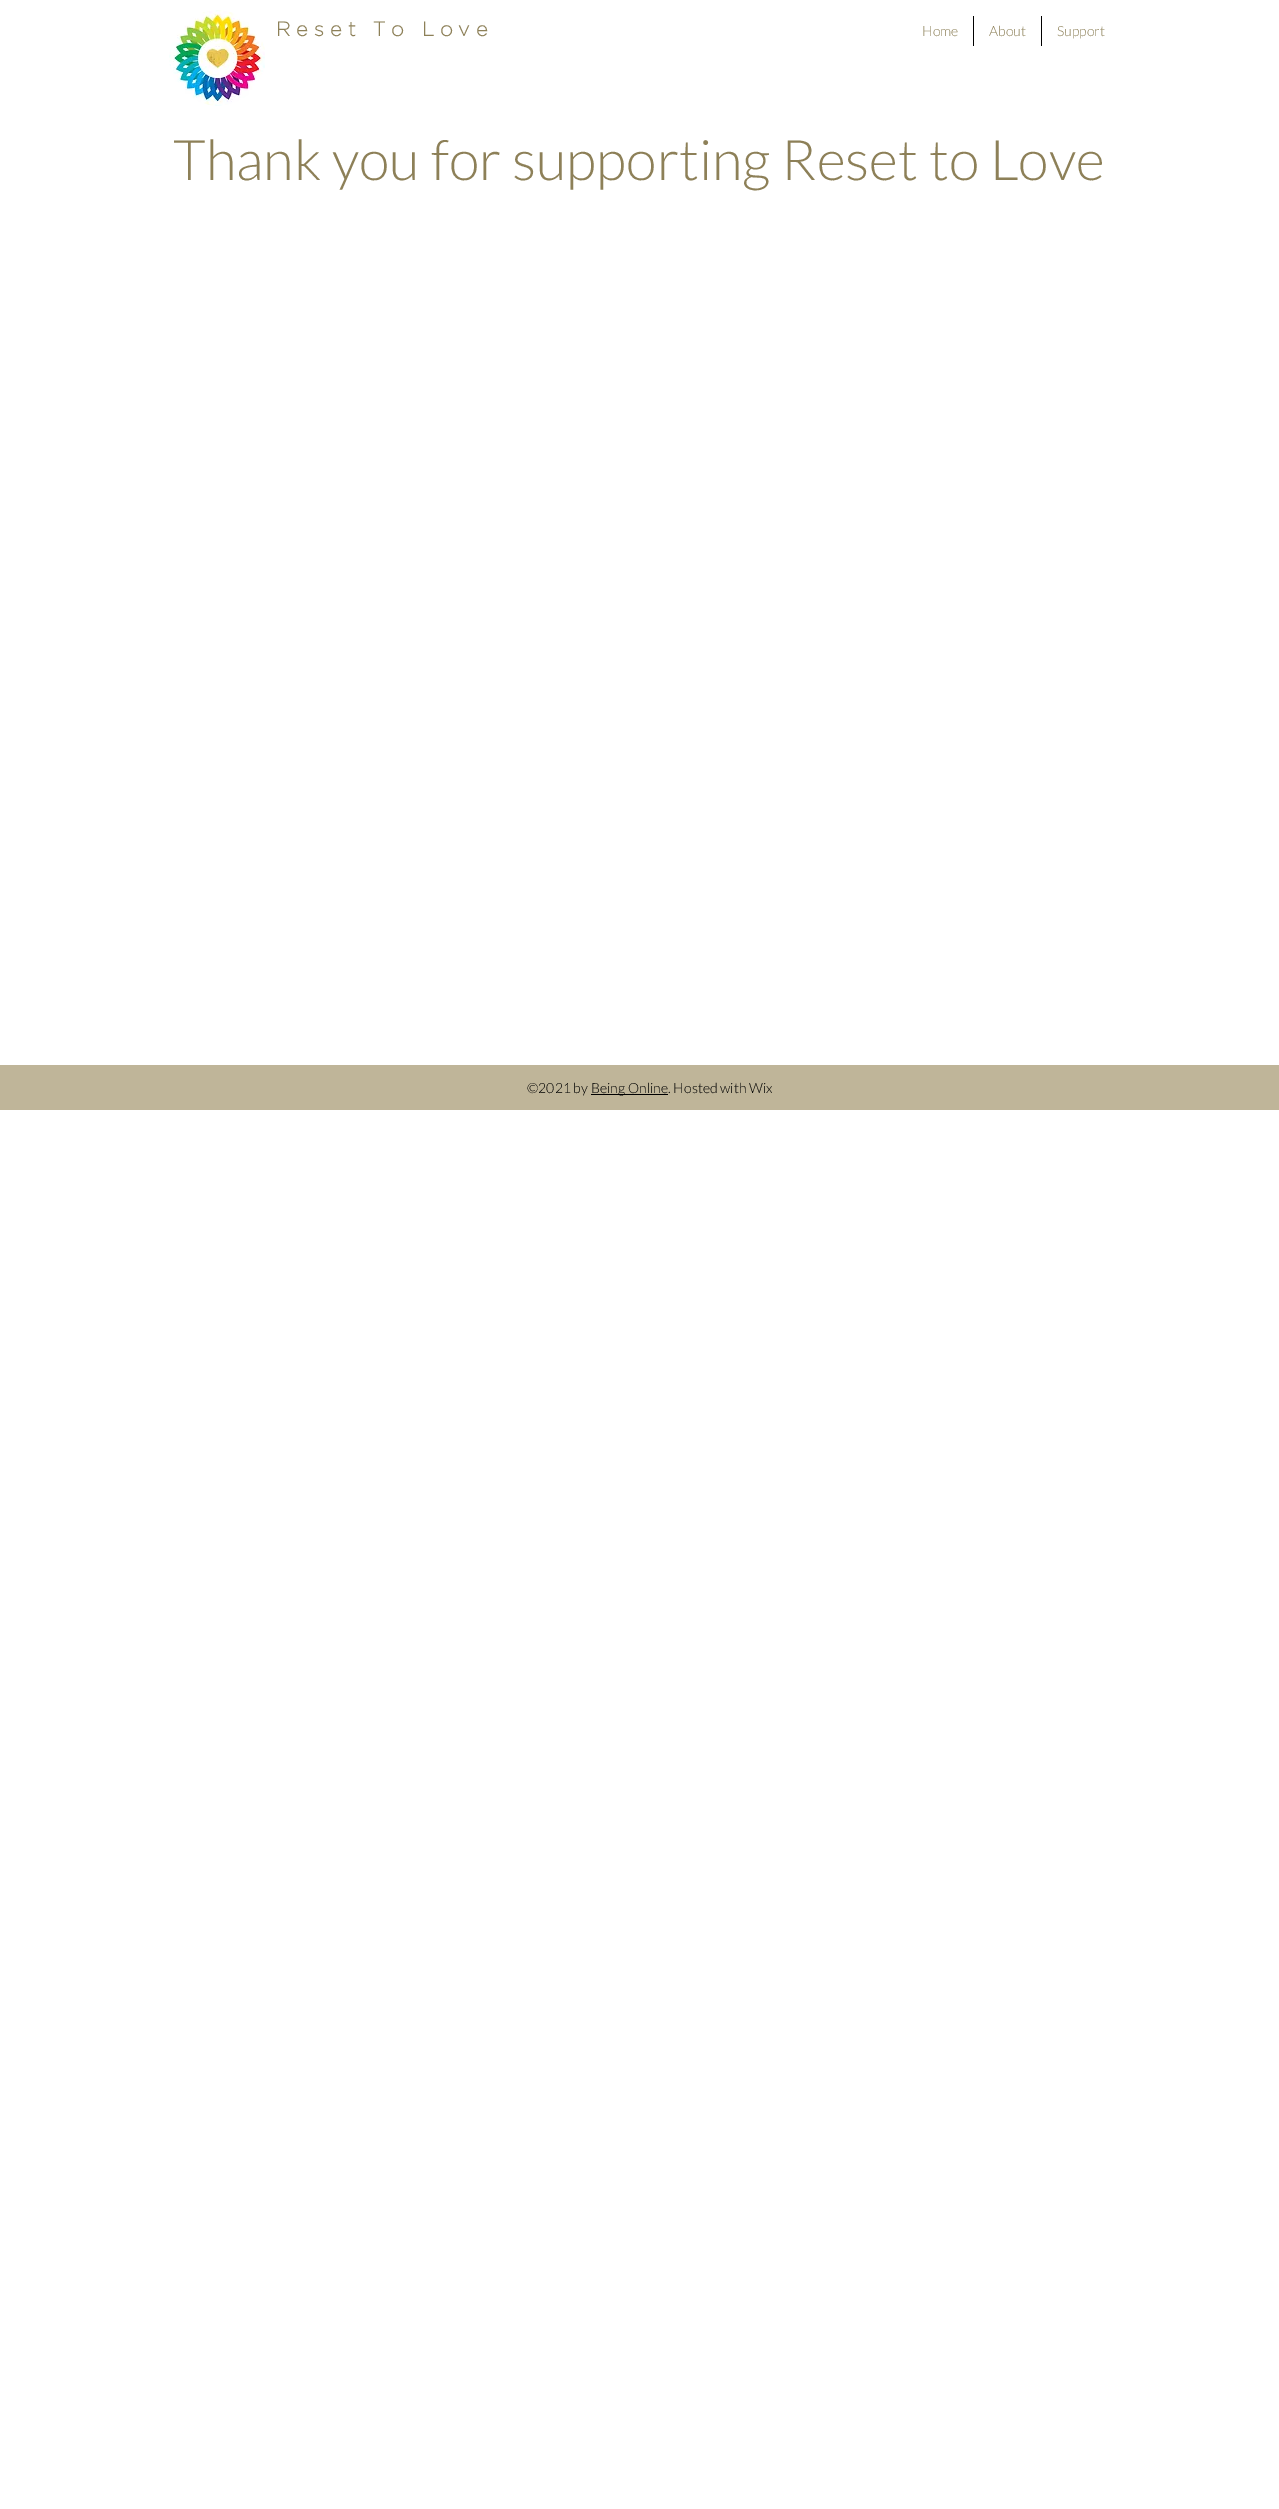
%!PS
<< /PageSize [1279 2509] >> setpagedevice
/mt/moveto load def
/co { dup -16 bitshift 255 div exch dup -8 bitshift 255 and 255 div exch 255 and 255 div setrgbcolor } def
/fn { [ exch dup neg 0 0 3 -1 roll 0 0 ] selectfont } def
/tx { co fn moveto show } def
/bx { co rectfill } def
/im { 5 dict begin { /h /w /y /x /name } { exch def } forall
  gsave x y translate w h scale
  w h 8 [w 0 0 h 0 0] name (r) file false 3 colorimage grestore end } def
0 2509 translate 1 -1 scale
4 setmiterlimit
0 0 1279 2509 16#FFFFFF bx
(media/1.raw) 169 10 96 96 im
973 16 1 30 16#000000 bx
1041 16 1 30 16#000000 bx
0 1065 1279 45 16#BFB599 bx
591 1094 77 1 16#000000 bx
/Gotham-Bold 20 fn
16#8D8058 co
276 36 mt 6 0 (Reset To Love) ashow
(Home) 922 36 /Lato-Light 14 16#8D8058 tx
(About) 989 36 /Lato-Light 14 16#8D8058 tx
(Support) 1057 36 /Lato-Light 14 16#8D8058 tx
(Thank you for supporting Reset to Love) 173 180 /Lato-Light 56 16#8D8058 tx
(©2021 by) 527 1093 /Lato-Light 14 16#000000 tx
(Being Online. Hosted with Wix) 591 1093 /Lato-Light 14 16#000000 tx
showpage
